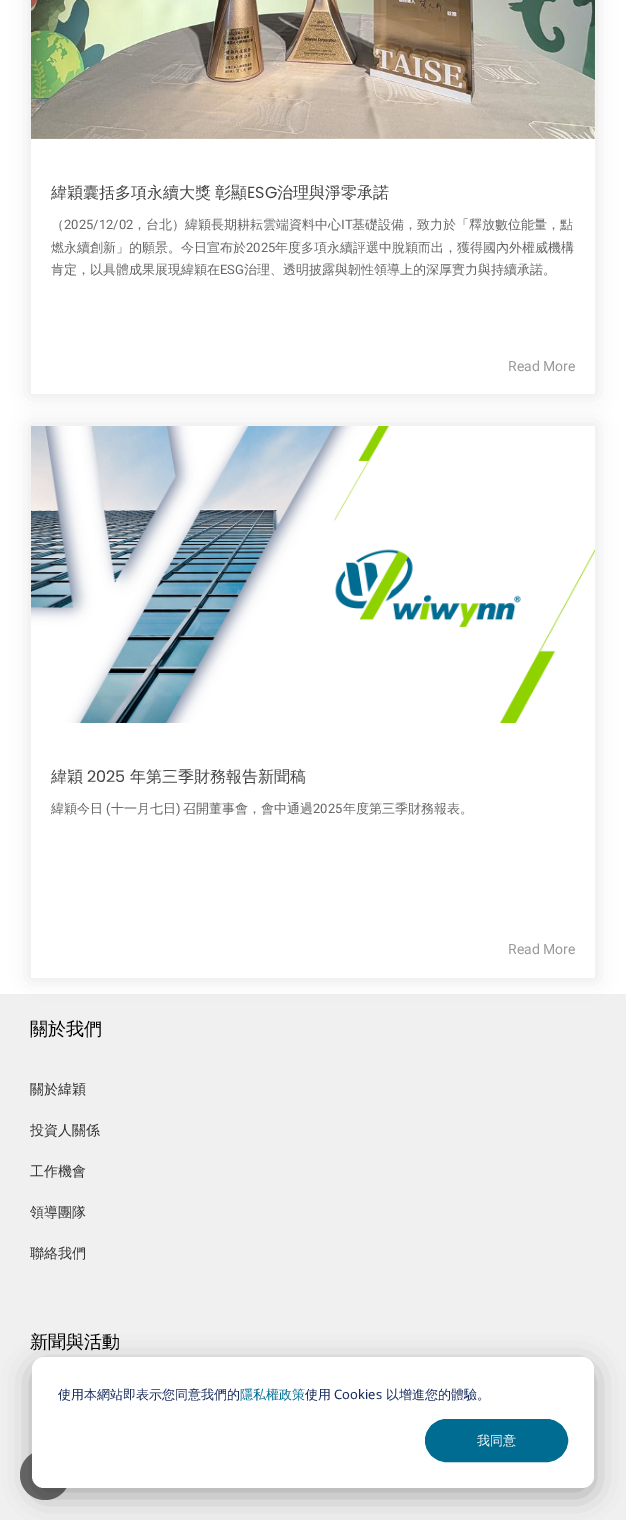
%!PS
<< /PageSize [626 1520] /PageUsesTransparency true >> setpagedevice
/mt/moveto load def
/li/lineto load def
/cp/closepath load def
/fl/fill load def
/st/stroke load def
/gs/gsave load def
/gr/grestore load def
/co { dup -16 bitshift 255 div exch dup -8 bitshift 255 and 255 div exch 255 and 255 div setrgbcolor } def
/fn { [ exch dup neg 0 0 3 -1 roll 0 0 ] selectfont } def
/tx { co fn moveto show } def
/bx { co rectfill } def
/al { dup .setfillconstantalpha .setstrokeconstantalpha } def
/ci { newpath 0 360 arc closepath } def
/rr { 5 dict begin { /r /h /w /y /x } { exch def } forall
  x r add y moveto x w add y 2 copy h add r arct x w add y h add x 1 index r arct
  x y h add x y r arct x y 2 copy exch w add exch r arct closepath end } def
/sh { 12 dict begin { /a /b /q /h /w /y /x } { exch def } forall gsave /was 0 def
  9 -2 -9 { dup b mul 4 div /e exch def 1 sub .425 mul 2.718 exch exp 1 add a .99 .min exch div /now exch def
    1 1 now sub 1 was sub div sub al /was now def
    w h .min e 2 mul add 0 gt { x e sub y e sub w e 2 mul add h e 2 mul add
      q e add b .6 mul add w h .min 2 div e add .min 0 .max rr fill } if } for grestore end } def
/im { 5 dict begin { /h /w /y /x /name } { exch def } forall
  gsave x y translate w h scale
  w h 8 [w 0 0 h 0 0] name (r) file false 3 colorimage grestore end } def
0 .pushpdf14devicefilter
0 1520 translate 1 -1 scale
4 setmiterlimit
0 0 626 1520 16#FFFFFF bx
gs
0 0 mt 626 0 li 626 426 li 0 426 li cp 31 -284 mt 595 -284 li 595 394 li 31 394 li cp eoclip newpath
16#000000 co
30 -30 566 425 0 10 .1 sh
gr
(media/1.raw) 31 0 564 139 im
0 994 626 526 16#F0F0F0 bx
gs
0 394 mt 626 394 li 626 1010 li 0 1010 li cp 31 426 mt 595 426 li 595 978 li 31 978 li cp eoclip newpath
16#000000 co
30 425 566 554 0 10 .1 sh
gr
(media/2.raw) 31 426 564 297 im
0.7 al
16#333333 co
45 1475 25 ci fl
1 al
16#000000 co
32 1365 562 131 12 14 .28 sh
16#FFFFFF co
32 1357 562 131 12 rr fl
16#006C92 co
425.5 1419.5 142 42 21 rr gs fl gr
st
/WenQuanYiZenHei-Medium 16 fn
16#444444 co
51 198 mt -1 0 32 (緯穎囊括多項永續大獎 彰顯) widthshow
(ESG) 247 198 /Poppins-Regular 16 16#444444 tx
(治理與淨零承諾) 277 198 /WenQuanYiZenHei-Medium 16 16#444444 tx
(（) 51 229 /WenQuanYiZenHei-Medium 13 16#666666 tx
(2025/12/02) 64 229 /Roboto-Regular 13 16#666666 tx
(，台北）緯穎長期耕耘雲端資料中心) 133 229 /WenQuanYiZenHei-Medium 13 16#666666 tx
(IT) 341 229 /Roboto-Regular 13 16#666666 tx
(基礎設備，致力於「釋放數位能量，點) 352 229 /WenQuanYiZenHei-Medium 13 16#666666 tx
(燃永續創新」的願景。今日宣布於) 51 252 /WenQuanYiZenHei-Medium 13 16#666666 tx
(2025) 246 252 /Roboto-Regular 13 16#666666 tx
(年度多項永續評選中脫穎而出，獲得國內外權威機構) 275 252 /WenQuanYiZenHei-Medium 13 16#666666 tx
(肯定，以具體成果展現緯穎在) 51 274 /WenQuanYiZenHei-Medium 13 16#666666 tx
(ESG) 220 274 /Roboto-Regular 13 16#666666 tx
(治理、透明披露與韌性領導上的深厚實力與持續承諾。) 244 274 /WenQuanYiZenHei-Medium 13 16#666666 tx
(Read More) 508 371 /Roboto-Regular 14 16#999999 tx
(緯穎) 51 782 /WenQuanYiZenHei-Medium 16 16#444444 tx
(2025) 87 782 /Poppins-Regular 16 16#444444 tx
(年第三季財務報告新聞稿) 130 782 /WenQuanYiZenHei-Medium 16 16#444444 tx
(緯穎今日) 51 813 /WenQuanYiZenHei-Medium 13 16#666666 tx
(\() 106 813 /Roboto-Regular 13 16#666666 tx
(十一月七日) 111 813 /WenQuanYiZenHei-Medium 13 16#666666 tx
(\)) 176 813 /Roboto-Regular 13 16#666666 tx
(召開董事會，會中通過) 183 813 /WenQuanYiZenHei-Medium 13 16#666666 tx
(2025) 313 813 /Roboto-Regular 13 16#666666 tx
(年度第三季財務報表。) 343 813 /WenQuanYiZenHei-Medium 13 16#666666 tx
(Read More) 508 954 /Roboto-Regular 14 16#999999 tx
(關於我們) 30 1035 /WenQuanYiZenHei-Medium 18 16#000000 tx
(關於緯穎) 30 1094 /WenQuanYiZenHei-Medium 14 16#333333 tx
(投資人關係) 30 1135 /WenQuanYiZenHei-Medium 14 16#333333 tx
(工作機會) 30 1176 /WenQuanYiZenHei-Medium 14 16#333333 tx
(領導團隊) 30 1217 /WenQuanYiZenHei-Medium 14 16#333333 tx
(聯絡我們) 30 1258 /WenQuanYiZenHei-Medium 14 16#333333 tx
(新聞與活動) 30 1348 /WenQuanYiZenHei-Medium 18 16#000000 tx
(使用本網站即表示您同意我們的) 58 1399 /WenQuanYiZenHei-Medium 13 16#15295A tx
(隱私權政策) 240 1399 /WenQuanYiZenHei-Medium 13 16#006C92 tx
(使用) 305 1399 /WenQuanYiZenHei-Medium 13 16#15295A tx
(Cookies) 334 1399 /NotoSans-Regular 13 16#15295A tx
(以增進您的體驗。) 386 1399 /WenQuanYiZenHei-Medium 13 16#15295A tx
(我同意) 477 1445 /WenQuanYiZenHei-Medium 13 16#FFFFFF tx
.poppdf14devicefilter showpage
